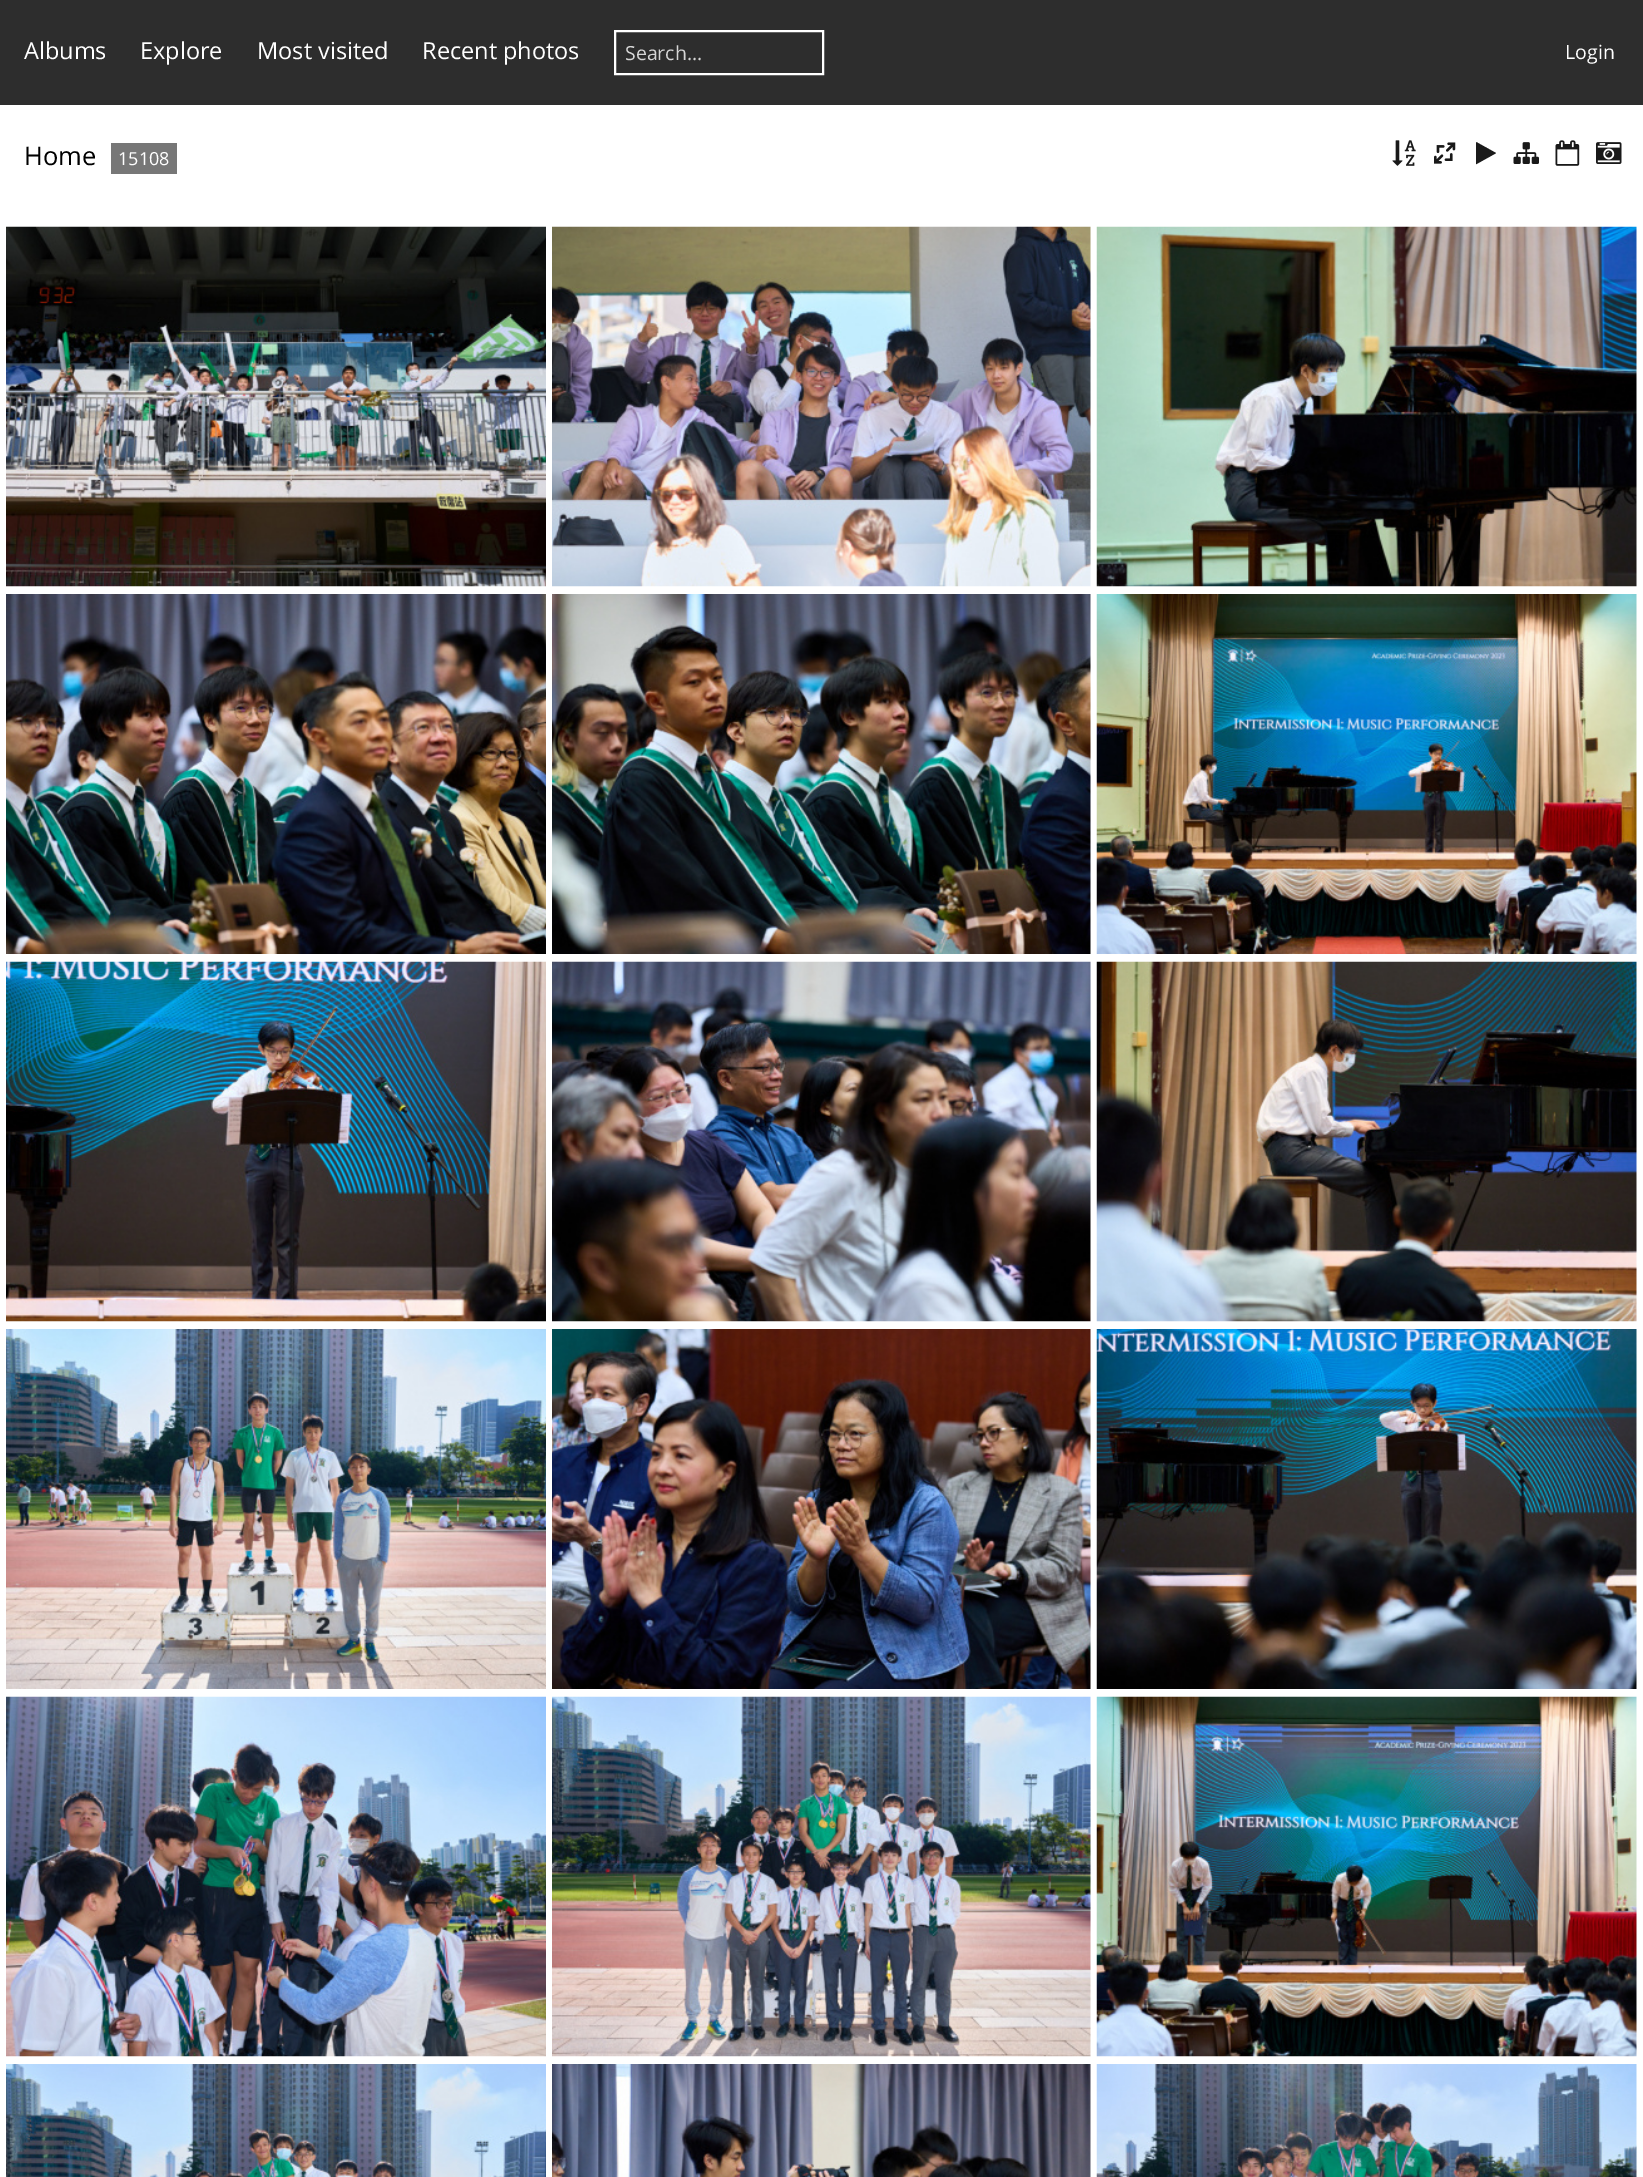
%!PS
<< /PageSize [1643 2177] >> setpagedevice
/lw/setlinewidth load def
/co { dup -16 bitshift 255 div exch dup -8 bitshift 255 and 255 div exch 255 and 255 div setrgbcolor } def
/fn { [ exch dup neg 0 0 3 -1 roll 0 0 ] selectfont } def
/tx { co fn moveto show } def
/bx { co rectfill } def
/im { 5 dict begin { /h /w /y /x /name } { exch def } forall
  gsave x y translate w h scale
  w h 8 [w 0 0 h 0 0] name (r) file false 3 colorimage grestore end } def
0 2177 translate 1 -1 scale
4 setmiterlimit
0 0 1643 2177 16#FFFFFF bx
0 0 1643 105 16#2D2D2D bx
16#FFFFFF co
2 lw
615 31 208 43 rectstroke
111 143 66 31 16#777777 bx
(media/1.raw) 1392 140 24 26 im
(media/2.raw) 1434 142 22 22 im
(media/3.raw) 1513 142 26 22 im
(media/4.raw) 1555 140 25 26 im
(media/5.raw) 1596 142 26 22 im
(media/6.raw) 6 226 540 361 im
(media/7.raw) 552 226 539 361 im
(media/8.raw) 1096 226 541 361 im
(media/9.raw) 6 594 540 360 im
(media/10.raw) 552 594 539 360 im
(media/11.raw) 1096 594 541 360 im
(media/12.raw) 6 961 540 361 im
(media/13.raw) 552 961 539 361 im
(media/14.raw) 1096 961 541 361 im
(media/15.raw) 6 1329 540 360 im
(media/16.raw) 552 1329 539 360 im
(media/17.raw) 1096 1329 541 360 im
(media/18.raw) 6 1696 540 361 im
(media/19.raw) 552 1696 539 361 im
(media/20.raw) 1096 1696 541 361 im
(media/21.raw) 6 2064 540 113 im
(media/22.raw) 552 2064 539 113 im
(media/23.raw) 1096 2064 541 113 im
(Albums) 24 59 /OpenSans-Regular 23.5 16#FFFFFF tx
(Explore) 140 59 /OpenSans-Regular 23.5 16#FFFFFF tx
(Most visited) 257 59 /OpenSans-Regular 23.5 16#FFFFFF tx
(Recent photos) 422 59 /OpenSans-Regular 23.5 16#FFFFFF tx
(Search...) 625 60 /OpenSans-Regular 19.5 16#D6D6D6 tx
(Login) 1565 59 /OpenSans-Regular 19.5 16#FFFFFF tx
(Home) 24 165 /OpenSans-Regular 25.5 16#000000 tx
(15108) 118 165 /OpenSans-Regular 18 16#FFFFFF tx
(▶) 1476 162 /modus-Regular 25.5 16#1A1A1A tx
showpage
